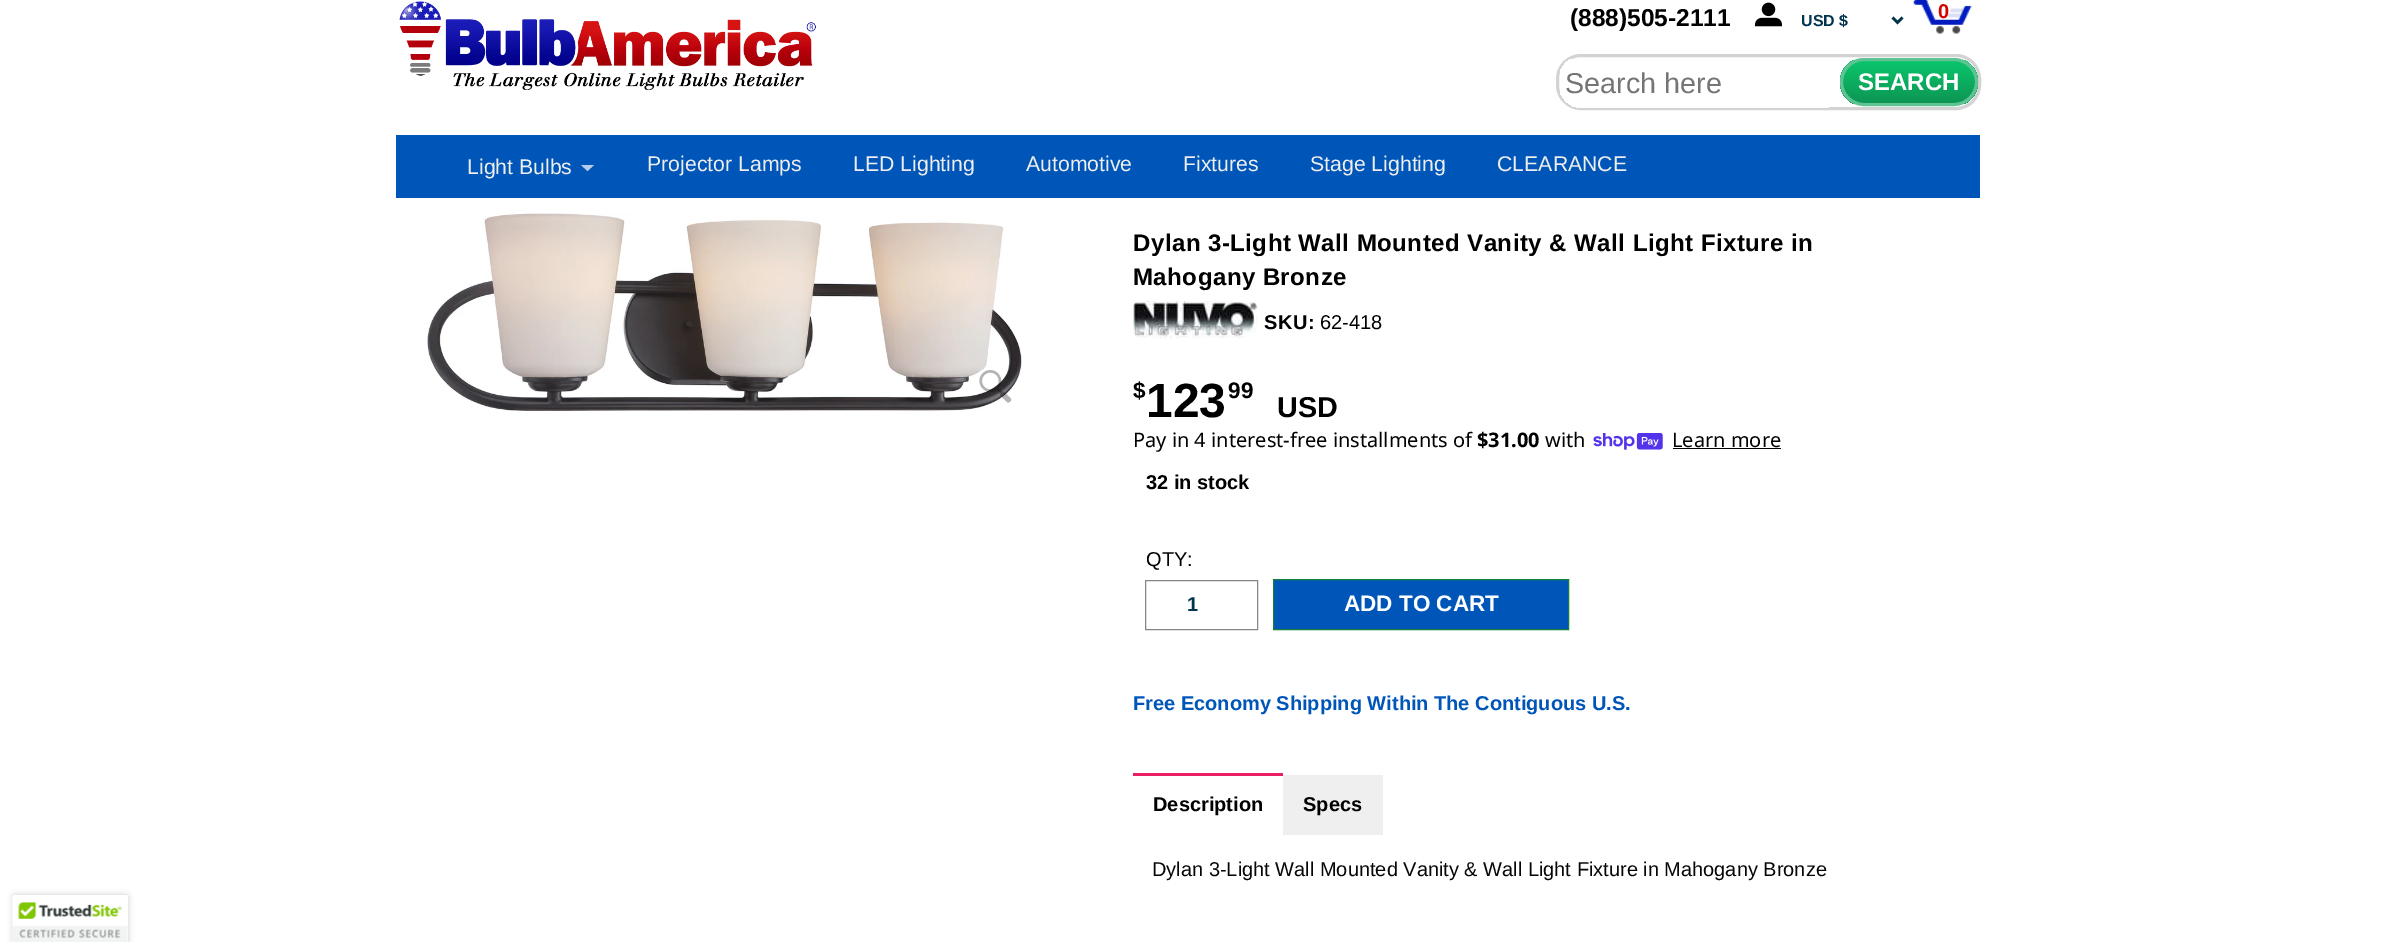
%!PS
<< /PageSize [2393 942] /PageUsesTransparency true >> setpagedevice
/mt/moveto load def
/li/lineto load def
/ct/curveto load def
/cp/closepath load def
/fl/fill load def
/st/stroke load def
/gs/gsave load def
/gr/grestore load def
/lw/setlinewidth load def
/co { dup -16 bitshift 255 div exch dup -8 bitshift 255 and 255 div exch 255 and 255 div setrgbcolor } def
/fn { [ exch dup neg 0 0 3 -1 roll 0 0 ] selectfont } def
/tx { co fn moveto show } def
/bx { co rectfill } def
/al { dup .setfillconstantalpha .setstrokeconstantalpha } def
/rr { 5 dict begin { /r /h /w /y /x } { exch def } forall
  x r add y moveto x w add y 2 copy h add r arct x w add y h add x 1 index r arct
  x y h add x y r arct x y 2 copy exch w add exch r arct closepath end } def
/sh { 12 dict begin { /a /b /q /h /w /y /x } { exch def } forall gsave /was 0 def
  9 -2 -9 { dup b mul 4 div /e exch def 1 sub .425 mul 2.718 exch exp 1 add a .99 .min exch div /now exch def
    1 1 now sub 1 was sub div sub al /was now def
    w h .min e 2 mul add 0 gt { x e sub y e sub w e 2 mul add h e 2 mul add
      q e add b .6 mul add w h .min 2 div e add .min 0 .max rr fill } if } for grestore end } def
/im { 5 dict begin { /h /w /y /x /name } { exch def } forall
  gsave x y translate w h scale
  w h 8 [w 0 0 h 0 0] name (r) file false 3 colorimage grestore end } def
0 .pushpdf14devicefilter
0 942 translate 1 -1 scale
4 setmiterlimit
0 0 2393 942 16#FFFFFF bx
(media/1.raw) 399 1 417 89 im
(media/2.raw) 1755 2 27 25 im
(media/3.raw) 1913 0 59 34 im
16#01344F co
2.5 lw
1892.5 17.5 mt 1897.5 22.5 li 1902.5 17.5 li st
16#D3D3D3 co
3 lw
1557.5 55.5 422 53 23.5 rr st
gs
1559 56 420 52 23 rr clip newpath
1560 59 269 49 16#FFFFFF bx
gr
gs
1840 58 138 48 24 rr clip newpath
gs 1840 60 mt 1978 60 li 1978 104 li 1840 104 li cp clip newpath
<< /ShadingType 2 /ColorSpace /DeviceRGB /Coords [1909 60 1909 104] /Extend [true true] /Function << /FunctionType 2 /Domain [0 1] /C0 [.039 .78 .424] /C1 [.051 .58 .325] /N 1 >> >> shfill gr
gr
16#5FC393 co
1841.5 59.5 135 45 22.5 rr st
396 135 1584 63 16#0056B8 bx
16#B3CCEA co
581 165 mt 594 165 li 587.5 171 li cp fl
(media/4.raw) 427 213 595 198 im
(media/5.raw) 979 370 33 33 im
(media/6.raw) 1132 301 126 38 im
(media/7.raw) 1593 433 70 17 im
1673 448 108 1 16#000000 bx
16#868686 co
1 lw
1145.5 580.5 112 49 rectstroke
16#0056B8 co
1273.5 579.5 mt 1568.5 579.5 li 1568.5 629.5 li 1273.5 629.5 li cp gs fl gr
16#137F3B co
st
1133 773 150 3 16#E91E63 bx
1283 775 100 60 16#EFEFEF bx
16#000000 co
13 895 115 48 2.5 3 .2 sh
16#FFFFFF co
15.5 895 mt 125.5 895 li 127 895 128 896 128 897.5 ct 128 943 li 13 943 li 13 897.5 li 13 896 14 895 15.5 895 ct cp fl
(media/8.raw) 12 897 116 45 im
(\(888\)505-2111) 1570 26 /LiberationSans-Bold 24.5 16#000000 tx
(0) 1938 18 /LiberationSans-Bold 20 16#D50000 tx
(USD $) 1801 26 /LiberationSans-Bold 16 16#01344F tx
(Search here) 1565 93 /LiberationSans-Regular 28.75 16#757575 tx
(SEARCH) 1858 90 /LiberationSans-Bold 24 16#FFFFFF tx
(Light Bulbs) 467 174 /LiberationSans-Regular 21.25 16#EEEEEE tx
(Projector Lamps) 647 171 /LiberationSans-Regular 21.25 16#EEEEEE tx
(LED Lighting) 853 171 /LiberationSans-Regular 21.25 16#EEEEEE tx
(Automotive) 1026 171 /LiberationSans-Regular 21.25 16#EEEEEE tx
(Fixtures) 1183 171 /LiberationSans-Regular 21.25 16#EEEEEE tx
(Stage Lighting) 1310 171 /LiberationSans-Regular 21.25 16#EEEEEE tx
(CLEARANCE) 1497 171 /LiberationSans-Regular 21.25 16#EEEEEE tx
/LiberationSans-Bold 24 fn
16#000000 co
1133 251 mt .48 0 (Dylan 3-Light Wall Mounted Vanity & Wall Light Fixture in) ashow
1133 285 mt .48 0 (Mahogany Bronze) ashow
/LiberationSans-Bold 20 fn
1264 329 mt .5 0 (SKU:) ashow
(62-418) 1320 329 /LiberationSans-Regular 20 16#000000 tx
($) 1133 398 /LiberationSans-Bold 22.5 16#000000 tx
(123) 1146 417 /LiberationSans-Bold 48 16#000000 tx
(99) 1228 398 /LiberationSans-Bold 22.5 16#000000 tx
(USD) 1277 417 /LiberationSans-Bold 28.75 16#000000 tx
(Pay in 4 interest-free installments of) 1133 447 /NotoSans-Regular 20 16#000000 tx
($31.00) 1477 447 /NotoSans-Bold 20 16#000000 tx
(with) 1545 447 /NotoSans-Regular 20 16#000000 tx
(Learn more) 1672 447 /NotoSans-Regular 20 16#000000 tx
(32 in stock) 1146 489 /LiberationSans-Bold 20 16#000000 tx
(QTY:) 1146 566 /LiberationSans-Regular 20 16#000000 tx
(1) 1187 611 /LiberationSans-Bold 20 16#01344F tx
(ADD TO CART) 1344 611 /LiberationSans-Bold 22.5 16#FFFFFF tx
(Free Economy Shipping Within The Contiguous U.S.) 1133 710 /LiberationSans-Bold 20 16#0056B8 tx
(Description) 1153 811 /LiberationSans-Bold 20 16#000000 tx
(Specs) 1303 811 /LiberationSans-Bold 20 16#000000 tx
(Dylan 3-Light Wall Mounted Vanity & Wall Light Fixture in Mahogany Bronze) 1152 876 /LiberationSans-Regular 20 16#060607 tx
.poppdf14devicefilter showpage
